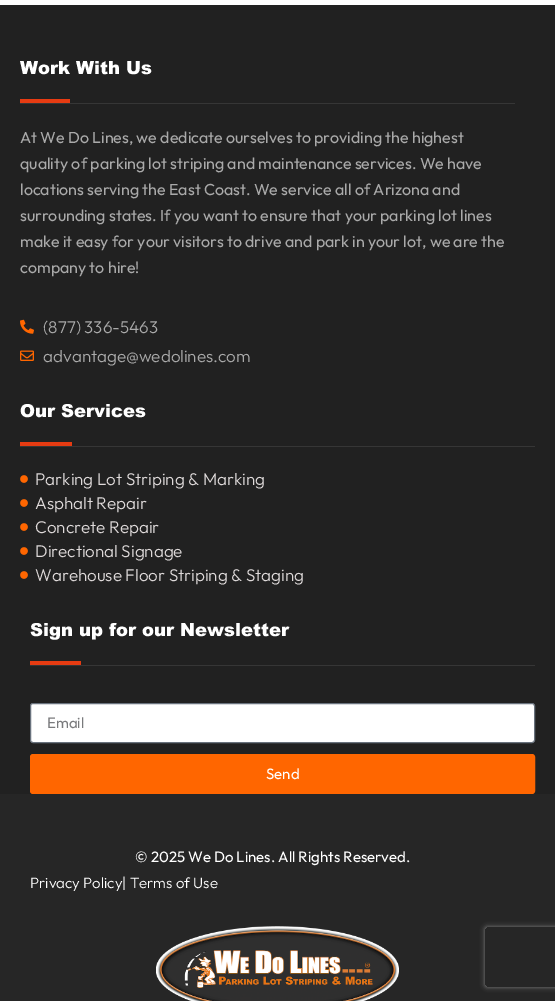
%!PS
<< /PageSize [555 1001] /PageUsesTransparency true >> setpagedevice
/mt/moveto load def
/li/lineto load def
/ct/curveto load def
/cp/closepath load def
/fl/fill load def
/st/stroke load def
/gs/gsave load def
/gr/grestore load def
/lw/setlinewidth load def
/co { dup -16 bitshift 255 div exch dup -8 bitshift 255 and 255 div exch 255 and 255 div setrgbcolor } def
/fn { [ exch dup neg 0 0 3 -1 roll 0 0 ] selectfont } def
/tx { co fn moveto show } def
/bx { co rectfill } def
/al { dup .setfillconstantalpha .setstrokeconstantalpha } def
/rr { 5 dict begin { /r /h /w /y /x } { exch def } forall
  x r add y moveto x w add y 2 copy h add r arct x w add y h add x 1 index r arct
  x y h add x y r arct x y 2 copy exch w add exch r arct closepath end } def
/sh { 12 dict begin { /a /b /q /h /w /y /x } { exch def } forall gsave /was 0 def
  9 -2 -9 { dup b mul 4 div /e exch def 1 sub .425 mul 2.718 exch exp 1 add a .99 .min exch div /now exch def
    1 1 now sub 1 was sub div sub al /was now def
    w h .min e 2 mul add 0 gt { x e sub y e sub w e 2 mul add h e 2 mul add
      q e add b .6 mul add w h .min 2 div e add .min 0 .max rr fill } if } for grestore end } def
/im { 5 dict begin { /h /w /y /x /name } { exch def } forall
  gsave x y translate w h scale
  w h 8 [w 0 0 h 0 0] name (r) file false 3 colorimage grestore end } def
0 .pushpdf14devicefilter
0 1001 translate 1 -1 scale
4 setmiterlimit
0 0 555 1001 16#FFFFFF bx
0 5 555 789 16#212121 bx
20 103 495 1 16#363636 bx
20 99 50 4 16#E63B12 bx
(media/1.raw) 20 319 14 15 im
(media/2.raw) 20 350 14 11 im
20 446 515 1 16#363636 bx
20 442 52 4 16#E63B12 bx
(media/3.raw) 20 475 8 8 im
(media/3.raw) 20 499 8 8 im
(media/3.raw) 20 523 8 8 im
(media/3.raw) 20 547 8 8 im
(media/3.raw) 20 571 8 8 im
30 665 505 1 16#363636 bx
30 661 51 4 16#E63B12 bx
16#FFFFFF co
30.5 703.5 504 39 2.5 rr gs fl gr
16#69727D co
st
16#FF6600 co
31.5 755.5 502 37 1.5 rr gs fl gr
3 lw
st
0 794 555 207 16#262626 bx
gs
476 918 mt 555 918 li 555 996 li 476 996 li cp 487 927 mt 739 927 li 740 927 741 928 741 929 ct 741 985 li 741 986 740 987 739 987 ct 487 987 li 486 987 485 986 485 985 ct 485 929 li 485 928 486 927 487 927 ct cp eoclip newpath
16#808080 co
485 927 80 60 2 2.5 1 sh
gr
(media/4.raw) 156 926 243 75 im
(Work With Us) 20 74 /Arial-Black 18 16#FFFFFF tx
(At We Do Lines, we dedicate ourselves to providing the highest) 20 143 /Outfit-Regular 16 16#AAAAAA tx
(quality of parking lot striping and maintenance services. We have) 20 169 /Outfit-Regular 16 16#AAAAAA tx
(locations serving the East Coast. We service all of Arizona and) 20 195 /Outfit-Regular 16 16#AAAAAA tx
(surrounding states. If you want to ensure that your parking lot lines) 20 221 /Outfit-Regular 16 16#AAAAAA tx
(make it easy for your visitors to drive and park in your lot, we are the) 20 247 /Outfit-Regular 16 16#AAAAAA tx
(company to hire!) 20 273 /Outfit-Regular 16 16#AAAAAA tx
(\(877\) 336-5463) 43 333 /Outfit-Light 17 16#AAAAAA tx
(advantage@wedolines.com) 43 362 /Outfit-Light 17 16#AAAAAA tx
(Our Services) 20 417 /Arial-Black 18 16#FFFFFF tx
(Parking Lot Striping & Marking) 35 485 /Outfit-Light 17 16#DFDADA tx
(Asphalt Repair) 35 509 /Outfit-Light 17 16#DFDADA tx
(Concrete Repair) 35 533 /Outfit-Light 17 16#DFDADA tx
(Directional Signage) 35 557 /Outfit-Light 17 16#DFDADA tx
(Warehouse Floor Striping & Staging) 35 581 /Outfit-Light 17 16#DFDADA tx
(Sign up for our Newsletter) 30 636 /Arial-Black 18 16#FFFFFF tx
(Email) 47 728 /Outfit-Regular 15 16#797A7C tx
(Send) 266 779 /Outfit-Regular 15 16#FFFFFF tx
(© 2025 We Do Lines. All Rights Reserved.) 135 862 /Outfit-Regular 15 16#FFFFFF tx
(Privacy Policy| Terms of Use) 30 888 /Outfit-Light 15 16#FFFFFF tx
.poppdf14devicefilter showpage
